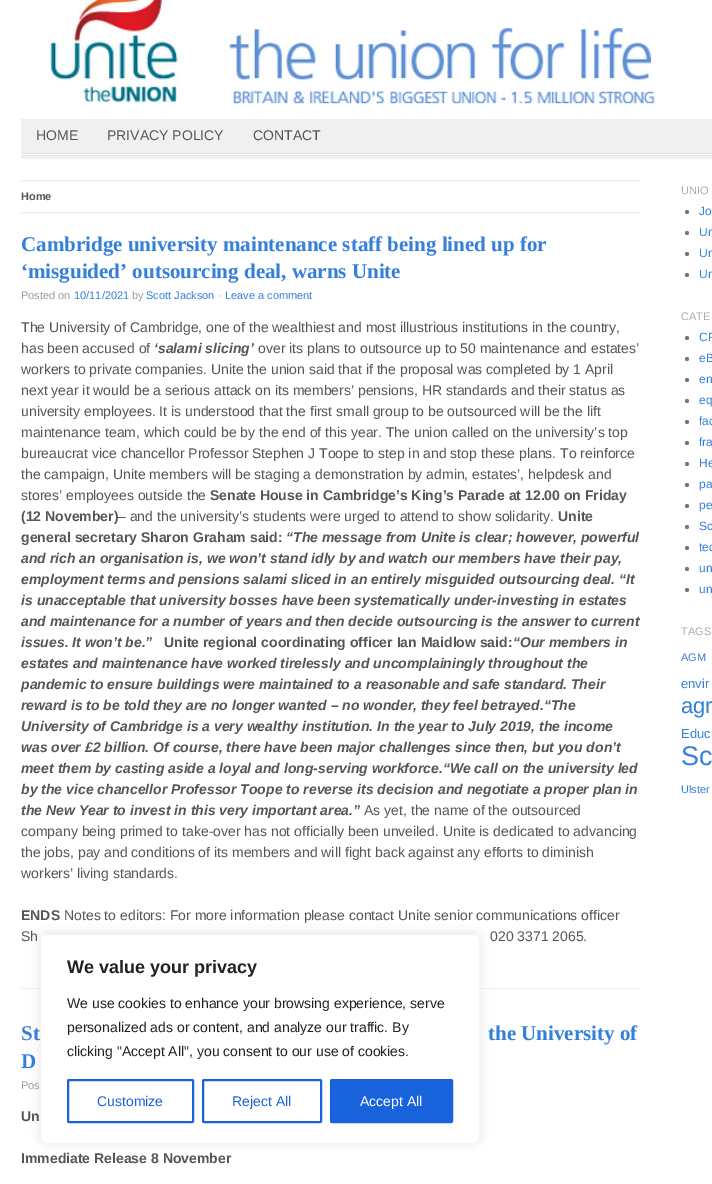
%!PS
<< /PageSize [712 1184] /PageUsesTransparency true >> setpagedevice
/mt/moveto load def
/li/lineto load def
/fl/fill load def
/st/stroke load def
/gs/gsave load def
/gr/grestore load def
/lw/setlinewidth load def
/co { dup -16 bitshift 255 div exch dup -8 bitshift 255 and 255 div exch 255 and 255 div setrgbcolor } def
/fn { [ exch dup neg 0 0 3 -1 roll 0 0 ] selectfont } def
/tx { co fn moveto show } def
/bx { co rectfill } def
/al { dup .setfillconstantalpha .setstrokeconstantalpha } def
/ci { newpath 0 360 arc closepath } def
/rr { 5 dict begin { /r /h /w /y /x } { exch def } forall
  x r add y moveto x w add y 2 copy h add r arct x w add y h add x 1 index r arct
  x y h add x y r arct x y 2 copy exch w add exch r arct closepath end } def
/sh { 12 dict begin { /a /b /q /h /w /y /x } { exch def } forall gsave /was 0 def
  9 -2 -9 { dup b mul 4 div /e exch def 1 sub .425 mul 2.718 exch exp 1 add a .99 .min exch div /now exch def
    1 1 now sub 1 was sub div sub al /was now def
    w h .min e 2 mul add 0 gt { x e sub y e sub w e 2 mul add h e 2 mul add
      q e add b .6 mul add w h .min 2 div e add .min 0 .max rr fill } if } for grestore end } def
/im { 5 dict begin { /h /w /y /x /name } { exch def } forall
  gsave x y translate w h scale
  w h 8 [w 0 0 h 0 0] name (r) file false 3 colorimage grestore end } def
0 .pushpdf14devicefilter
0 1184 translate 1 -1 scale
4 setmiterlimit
0 0 712 1184 16#FFFFFF bx
(media/1.raw) 21 0 691 119 im
21 119 691 34 16#F0F0F0 bx
21 153 691 1 16#E6E6E6 bx
21 155 691 1 16#E6E6E6 bx
21 156 691 3 16#F0F0F0 bx
16#DDDDDD co
[1 1] 0 setdash
21 180.5 mt 641 180.5 li st
21 212.5 mt 641 212.5 li st
21 988 620 1 16#F0F0F0 bx
16#777777 co
687 212 2 ci fl
687 233 2 ci fl
687 254 2 ci fl
687 275 2 ci fl
687 338 2 ci fl
687 359 2 ci fl
687 380 2 ci fl
687 401 2 ci fl
687 422 2 ci fl
687 443 2 ci fl
687 464 2 ci fl
687 485 2 ci fl
687 506 2 ci fl
687 527 2 ci fl
687 548 2 ci fl
687 569 2 ci fl
687 590 2 ci fl
16#ACABAB co
40 933 440 210 6 5 .3 sh
16#FFFFFF co
40.5 934.5 439 209 5.5 rr gs fl gr
16#F4F4F4 co
[] 0 setdash
st
16#1863DC co
2 lw
68 1080 125 42 1 rr st
203 1080 118 42 1 rr st
331 1080 121 42 1 rr gs fl gr
st
(HOME) 36 140 /LiberationSans-Regular 14 16#555555 tx
(PRIVACY POLICY) 107 140 /LiberationSans-Regular 14 16#555555 tx
(CONTACT) 253 140 /LiberationSans-Regular 14 16#555555 tx
(Home) 21 200 /LiberationSans-Bold 11 16#555555 tx
(Cambridge university maintenance staff being lined up for) 21 251 /LiberationSerif-Bold 21 16#337FDA tx
(‘misguided’ outsourcing deal, warns Unite) 21 278 /LiberationSerif-Bold 21 16#337FDA tx
(Posted on) 21 299 /LiberationSans-Regular 11 16#999999 tx
(10/11/2021) 74 299 /LiberationSans-Regular 11 16#337FDA tx
(by) 132 299 /LiberationSans-Regular 11 16#999999 tx
(Scott Jackson) 146 299 /LiberationSans-Regular 11 16#337FDA tx
(·) 218 299 /LiberationSans-Regular 11 16#999999 tx
(Leave a comment) 225 299 /LiberationSans-Regular 11 16#337FDA tx
(The University of Cambridge, one of the wealthiest and most illustrious institutions in the country,) 21 332 /LiberationSans-Regular 14 16#555555 tx
(has been accused of) 21 353 /LiberationSans-Regular 14 16#555555 tx
(‘salami slicing’) 154 353 /LiberationSans-BoldItalic 14 16#555555 tx
(over its plans to outsource up to 50 maintenance and estates’) 258 353 /LiberationSans-Regular 14 16#555555 tx
(workers to private companies. Unite the union said that if the proposal was completed by 1 April) 21 374 /LiberationSans-Regular 14 16#555555 tx
(next year it would be a serious attack on its members’ pensions, HR standards and their status as) 21 395 /LiberationSans-Regular 14 16#555555 tx
(university employees. It is understood that the first small group to be outsourced will be the lift) 21 416 /LiberationSans-Regular 14 16#555555 tx
(maintenance team, which could be by the end of this year. The union called on the university’s top) 21 437 /LiberationSans-Regular 14 16#555555 tx
(bureaucrat vice chancellor Professor Stephen J Toope to step in and stop these plans. To reinforce) 21 458 /LiberationSans-Regular 14 16#555555 tx
(the campaign, Unite members will be staging a demonstration by admin, estates’, helpdesk and) 21 479 /LiberationSans-Regular 14 16#555555 tx
(stores’ employees outside the) 21 500 /LiberationSans-Regular 14 16#555555 tx
(Senate House in Cambridge’s King’s Parade at 12.00 on Friday) 210 500 /LiberationSans-Bold 14 16#555555 tx
(\(12 November\)) 21 521 /LiberationSans-Bold 14 16#555555 tx
(– and the university’s students were urged to attend to show solidarity.) 118 521 /LiberationSans-Regular 14 16#555555 tx
(Unite) 558 521 /LiberationSans-Bold 14 16#555555 tx
(general secretary Sharon Graham said:) 21 542 /LiberationSans-Bold 14 16#555555 tx
(“The message from Unite is clear; however, powerful) 286 542 /LiberationSans-BoldItalic 14 16#555555 tx
(and rich an organisation is, we won’t stand idly by and watch our members have their pay,) 21 563 /LiberationSans-BoldItalic 14 16#555555 tx
(employment terms and pensions salami sliced in an entirely misguided outsourcing deal. “It) 21 584 /LiberationSans-BoldItalic 14 16#555555 tx
(is unacceptable that university bosses have been systematically under-investing in estates) 21 605 /LiberationSans-BoldItalic 14 16#555555 tx
(and maintenance for a number of years and then decide outsourcing is the answer to current) 21 626 /LiberationSans-BoldItalic 14 16#555555 tx
(issues. It won’t be.”) 21 647 /LiberationSans-BoldItalic 14 16#555555 tx
(Unite regional coordinating officer Ian Maidlow said:) 164 647 /LiberationSans-Bold 14 16#555555 tx
(“Our members in) 513 647 /LiberationSans-BoldItalic 14 16#555555 tx
(estates and maintenance have worked tirelessly and uncomplainingly throughout the) 21 668 /LiberationSans-BoldItalic 14 16#555555 tx
(pandemic to ensure buildings were maintained to a reasonable and safe standard. Their) 21 689 /LiberationSans-BoldItalic 14 16#555555 tx
(reward is to be told they are no longer wanted – no wonder, they feel betrayed.“The) 21 710 /LiberationSans-BoldItalic 14 16#555555 tx
(University of Cambridge is a very wealthy institution. In the year to July 2019, the income) 21 731 /LiberationSans-BoldItalic 14 16#555555 tx
(was over £2 billion. Of course, there have been major challenges since then, but you don’t) 21 752 /LiberationSans-BoldItalic 14 16#555555 tx
(meet them by casting aside a loyal and long-serving workforce.“We call on the university led) 21 773 /LiberationSans-BoldItalic 14 16#555555 tx
(by the vice chancellor Professor Toope to reverse its decision and negotiate a proper plan in) 21 794 /LiberationSans-BoldItalic 14 16#555555 tx
(the New Year to invest in this very important area.”) 21 815 /LiberationSans-BoldItalic 14 16#555555 tx
(As yet, the name of the outsourced) 364 815 /LiberationSans-Regular 14 16#555555 tx
(company being primed to take-over has not officially been unveiled. Unite is dedicated to advancing) 21 836 /LiberationSans-Regular 14 16#555555 tx
(the jobs, pay and conditions of its members and will fight back against any efforts to diminish) 21 857 /LiberationSans-Regular 14 16#555555 tx
(workers’ living standards.) 21 878 /LiberationSans-Regular 14 16#555555 tx
(ENDS) 21 920 /LiberationSans-Bold 14 16#555555 tx
(Notes to editors: For more information please contact Unite senior communications officer) 64 920 /LiberationSans-Regular 14 16#555555 tx
(Sh) 21 941 /LiberationSans-Regular 14 16#555555 tx
(020 3371 2065.) 490 941 /LiberationSans-Regular 14 16#555555 tx
(St) 21 1040 /LiberationSerif-Bold 21 16#337FDA tx
(the University of) 488 1040 /LiberationSerif-Bold 21 16#337FDA tx
(D) 21 1068 /LiberationSerif-Bold 21 16#337FDA tx
(Pos) 21 1089 /LiberationSans-Regular 11 16#999999 tx
(Un) 21 1121 /LiberationSans-Bold 14 16#555555 tx
(Immediate Release 8 November) 21 1163 /LiberationSans-Bold 14 16#555555 tx
(UNIO) 681 194 /LiberationSans-Regular 11 16#AAAAAA tx
(Jo) 699 215 /LiberationSans-Regular 12 16#337FDA tx
(Un) 699 236 /LiberationSans-Regular 12 16#337FDA tx
(Un) 699 257 /LiberationSans-Regular 12 16#337FDA tx
(Un) 699 278 /LiberationSans-Regular 12 16#337FDA tx
(CATE) 681 320 /LiberationSans-Regular 11 16#AAAAAA tx
(CP) 699 341 /LiberationSans-Regular 12 16#337FDA tx
(eB) 699 362 /LiberationSans-Regular 12 16#337FDA tx
(en) 699 383 /LiberationSans-Regular 12 16#337FDA tx
(eq) 699 404 /LiberationSans-Regular 12 16#337FDA tx
(fac) 699 425 /LiberationSans-Regular 12 16#337FDA tx
(fra) 699 446 /LiberationSans-Regular 12 16#337FDA tx
(He) 699 467 /LiberationSans-Regular 12 16#337FDA tx
(pa) 699 488 /LiberationSans-Regular 12 16#337FDA tx
(pe) 699 509 /LiberationSans-Regular 12 16#337FDA tx
(Sc) 699 530 /LiberationSans-Regular 12 16#337FDA tx
(tec) 699 551 /LiberationSans-Regular 12 16#337FDA tx
(un) 699 572 /LiberationSans-Regular 12 16#337FDA tx
(un) 699 593 /LiberationSans-Regular 12 16#337FDA tx
(TAGS) 681 635 /LiberationSans-Regular 11 16#AAAAAA tx
(AGM) 681 661 /LiberationSans-Regular 11 16#337FDA tx
(envir) 681 688 /LiberationSans-Regular 13 16#337FDA tx
(agr) 681 713 /LiberationSans-Regular 22 16#337FDA tx
(Educ) 681 738 /LiberationSans-Regular 13 16#337FDA tx
(Sc) 681 765 /LiberationSans-Regular 27 16#337FDA tx
(Ulster) 681 793 /LiberationSans-Regular 11 16#337FDA tx
(We value your privacy) 67 973 /LiberationSans-Bold 18 16#212121 tx
(We use cookies to enhance your browsing experience, serve) 67 1008 /LiberationSans-Regular 14 16#212121 tx
(personalized ads or content, and analyze our traffic. By) 67 1032 /LiberationSans-Regular 14 16#212121 tx
(clicking "Accept All", you consent to our use of cookies.) 67 1056 /LiberationSans-Regular 14 16#212121 tx
(Customize) 97 1106 /LiberationSans-Regular 14 16#1863DC tx
(Reject All) 232 1106 /LiberationSans-Regular 14 16#1863DC tx
(Accept All) 360 1106 /LiberationSans-Regular 14 16#FFFFFF tx
.poppdf14devicefilter showpage
